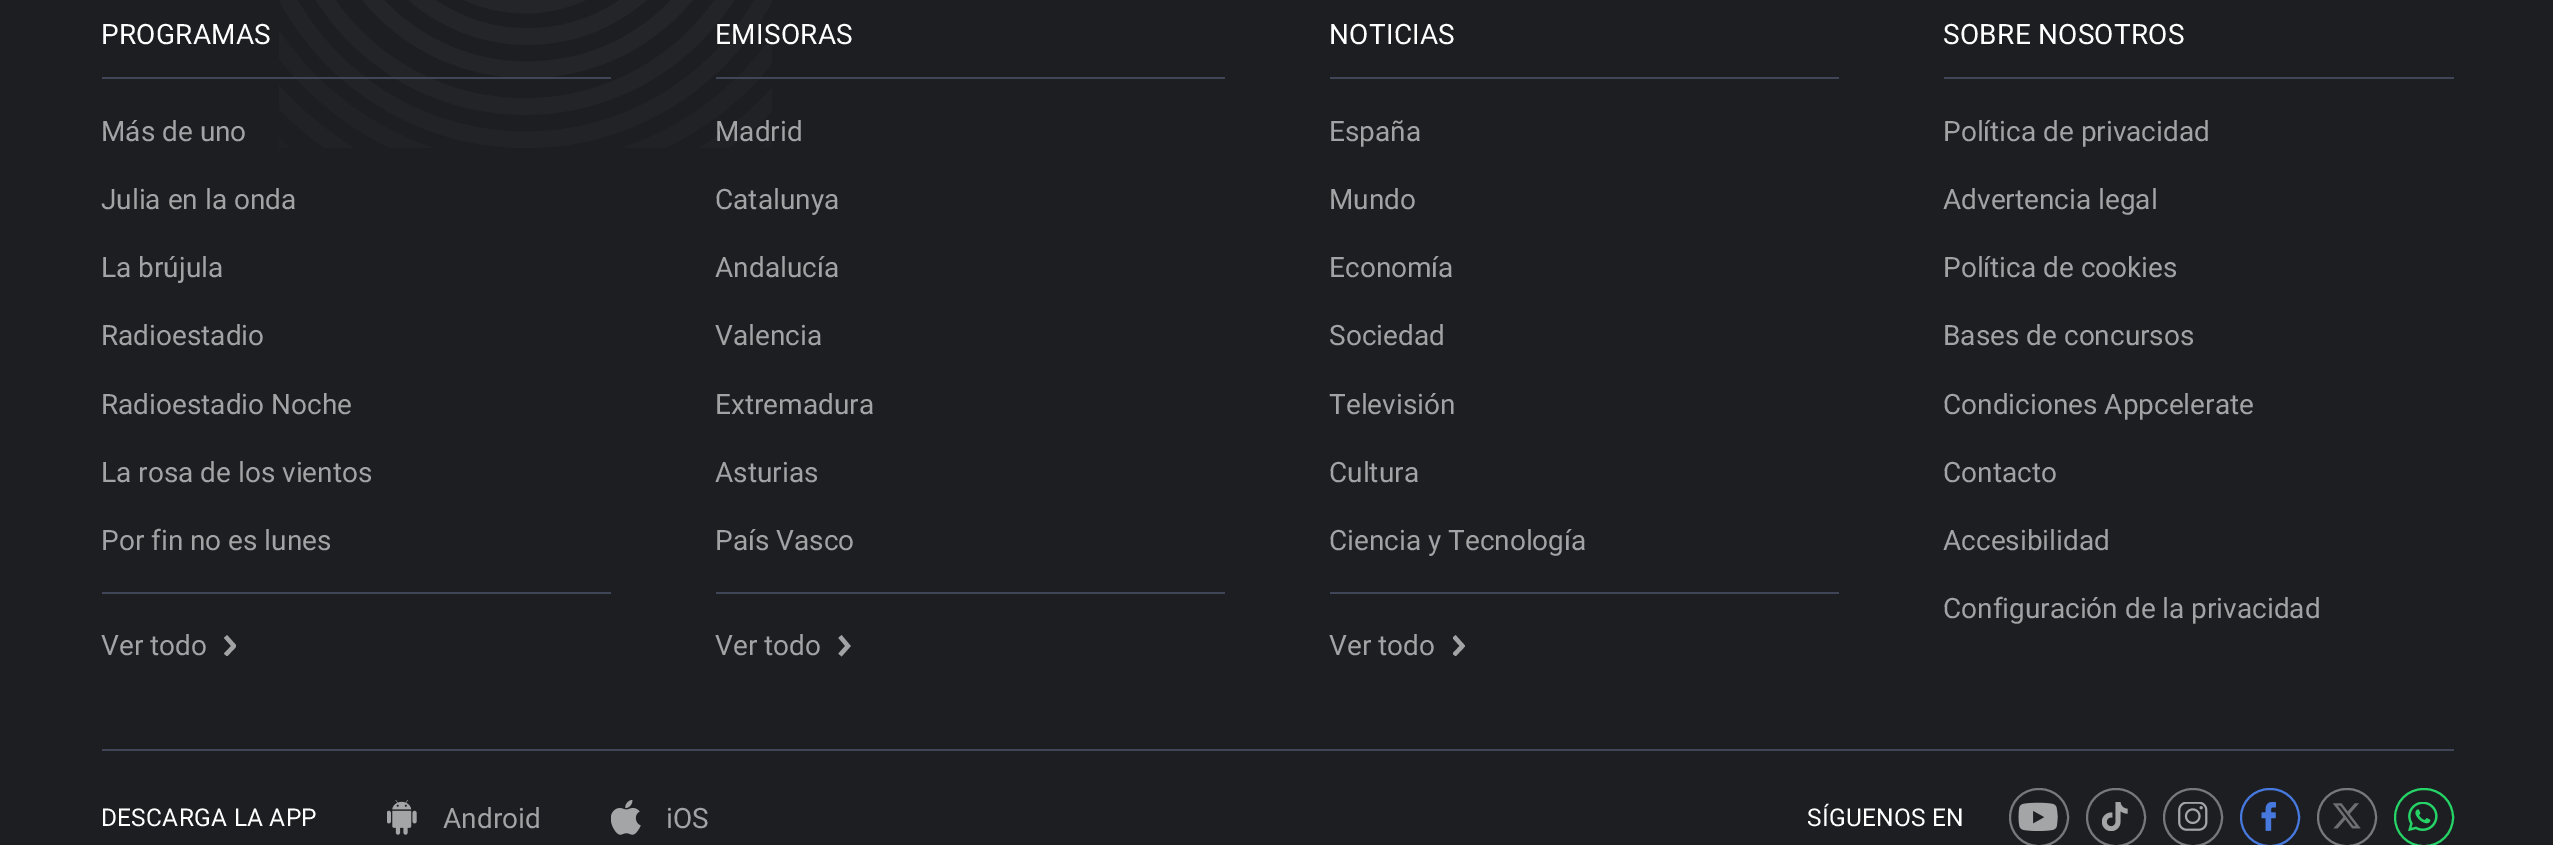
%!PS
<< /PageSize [2553 845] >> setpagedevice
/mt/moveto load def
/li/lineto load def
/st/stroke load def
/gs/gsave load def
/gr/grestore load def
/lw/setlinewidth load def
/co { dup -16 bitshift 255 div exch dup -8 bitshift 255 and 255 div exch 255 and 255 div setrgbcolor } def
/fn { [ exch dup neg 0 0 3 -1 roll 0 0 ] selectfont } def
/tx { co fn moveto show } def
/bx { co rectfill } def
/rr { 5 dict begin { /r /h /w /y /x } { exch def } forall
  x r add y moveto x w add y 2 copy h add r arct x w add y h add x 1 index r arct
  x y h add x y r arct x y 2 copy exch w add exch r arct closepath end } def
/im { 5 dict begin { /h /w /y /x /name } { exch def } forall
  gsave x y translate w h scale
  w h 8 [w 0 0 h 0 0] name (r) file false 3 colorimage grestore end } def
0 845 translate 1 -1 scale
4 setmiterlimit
0 0 2553 845 16#1C1E22 bx
(media/1.raw) 279 0 493 148 im
102 77 509 2 16#414558 bx
102 592 509 2 16#414558 bx
gs
224 635 12 21 rectclip
16#A2A3A4 co
4.2 lw
225.5 636.5 mt 234 646 li 225.5 655 li st
gr
716 77 509 2 16#414558 bx
716 592 509 2 16#414558 bx
16#A2A3A4 co
4.2 lw
840 636.5 mt 848 646 li 840 655 li st
1330 77 509 2 16#414558 bx
1330 592 509 2 16#414558 bx
gs
1453 635 12 21 rectclip
16#A2A3A4 co
1454 636.5 mt 1462.5 646 li 1454 655 li st
gr
1944 77 510 2 16#414558 bx
102 749 2352 2 16#414558 bx
(media/2.raw) 387 800 30 35 im
(media/3.raw) 611 800 30 35 im
16#77787A co
2 lw
2010 789 58 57 28.5 rr st
(media/4.raw) 2018 802 40 29 im
2087 789 58 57 28.5 rr st
(media/5.raw) 2102 802 26 29 im
2164 789 58 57 28.5 rr st
(media/6.raw) 2178 802 30 29 im
16#4678DE co
2241 789 58 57 28.5 rr st
(media/7.raw) 2261 802 15 29 im
16#77787A co
2318 789 58 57 28.5 rr st
(media/8.raw) 2333 803 28 26 im
16#25D366 co
2395 789 58 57 28.5 rr st
(media/9.raw) 2408 802 30 29 im
/Roboto-Regular 28 fn
16#FFFFFF co
101 44 mt .25 0 (PROGRAMAS) ashow
(Más de uno) 101 141 /Roboto-Regular 28 16#A2A3A4 tx
(Julia en la onda) 101 209 /Roboto-Regular 28 16#A2A3A4 tx
(La brújula) 101 277 /Roboto-Regular 28 16#A2A3A4 tx
(Radioestadio) 101 345 /Roboto-Regular 28 16#A2A3A4 tx
(Radioestadio Noche) 101 414 /Roboto-Regular 28 16#A2A3A4 tx
(La rosa de los vientos) 101 482 /Roboto-Regular 28 16#A2A3A4 tx
(Por fin no es lunes) 101 550 /Roboto-Regular 28 16#A2A3A4 tx
(Ver todo) 101 655 /Roboto-Regular 28 16#A2A3A4 tx
16#FFFFFF co
715 44 mt .25 0 (EMISORAS) ashow
(Madrid) 715 141 /Roboto-Regular 28 16#A2A3A4 tx
(Catalunya) 715 209 /Roboto-Regular 28 16#A2A3A4 tx
(Andalucía) 715 277 /Roboto-Regular 28 16#A2A3A4 tx
(Valencia) 715 345 /Roboto-Regular 28 16#A2A3A4 tx
(Extremadura) 715 414 /Roboto-Regular 28 16#A2A3A4 tx
(Asturias) 715 482 /Roboto-Regular 28 16#A2A3A4 tx
(País Vasco) 715 550 /Roboto-Regular 28 16#A2A3A4 tx
(Ver todo) 715 655 /Roboto-Regular 28 16#A2A3A4 tx
16#FFFFFF co
1329 44 mt .25 0 (NOTICIAS) ashow
(España) 1329 141 /Roboto-Regular 28 16#A2A3A4 tx
(Mundo) 1329 209 /Roboto-Regular 28 16#A2A3A4 tx
(Economía) 1329 277 /Roboto-Regular 28 16#A2A3A4 tx
(Sociedad) 1329 345 /Roboto-Regular 28 16#A2A3A4 tx
(Televisión) 1329 414 /Roboto-Regular 28 16#A2A3A4 tx
(Cultura) 1329 482 /Roboto-Regular 28 16#A2A3A4 tx
(Ciencia y Tecnología) 1329 550 /Roboto-Regular 28 16#A2A3A4 tx
(Ver todo) 1329 655 /Roboto-Regular 28 16#A2A3A4 tx
16#FFFFFF co
1943 44 mt .25 0 (SOBRE NOSOTROS) ashow
(Política de privacidad) 1943 141 /Roboto-Regular 28 16#A2A3A4 tx
(Advertencia legal) 1943 209 /Roboto-Regular 28 16#A2A3A4 tx
(Política de cookies) 1943 277 /Roboto-Regular 28 16#A2A3A4 tx
(Bases de concursos) 1943 345 /Roboto-Regular 28 16#A2A3A4 tx
(Condiciones Appcelerate) 1943 414 /Roboto-Regular 28 16#A2A3A4 tx
(Contacto) 1943 482 /Roboto-Regular 28 16#A2A3A4 tx
(Accesibilidad) 1943 550 /Roboto-Regular 28 16#A2A3A4 tx
(Configuración de la privacidad) 1943 618 /Roboto-Regular 28 16#A2A3A4 tx
/Roboto-Regular 24.5 fn
16#FFFFFF co
101 826 mt .25 0 (DESCARGA LA APP) ashow
(Android) 443 828 /Roboto-Regular 28 16#A2A3A4 tx
(iOS) 666 828 /Roboto-Regular 28 16#A2A3A4 tx
/Roboto-Regular 24.5 fn
16#FFFFFF co
1807 826 mt .25 0 (SÍGUENOS EN) ashow
showpage
